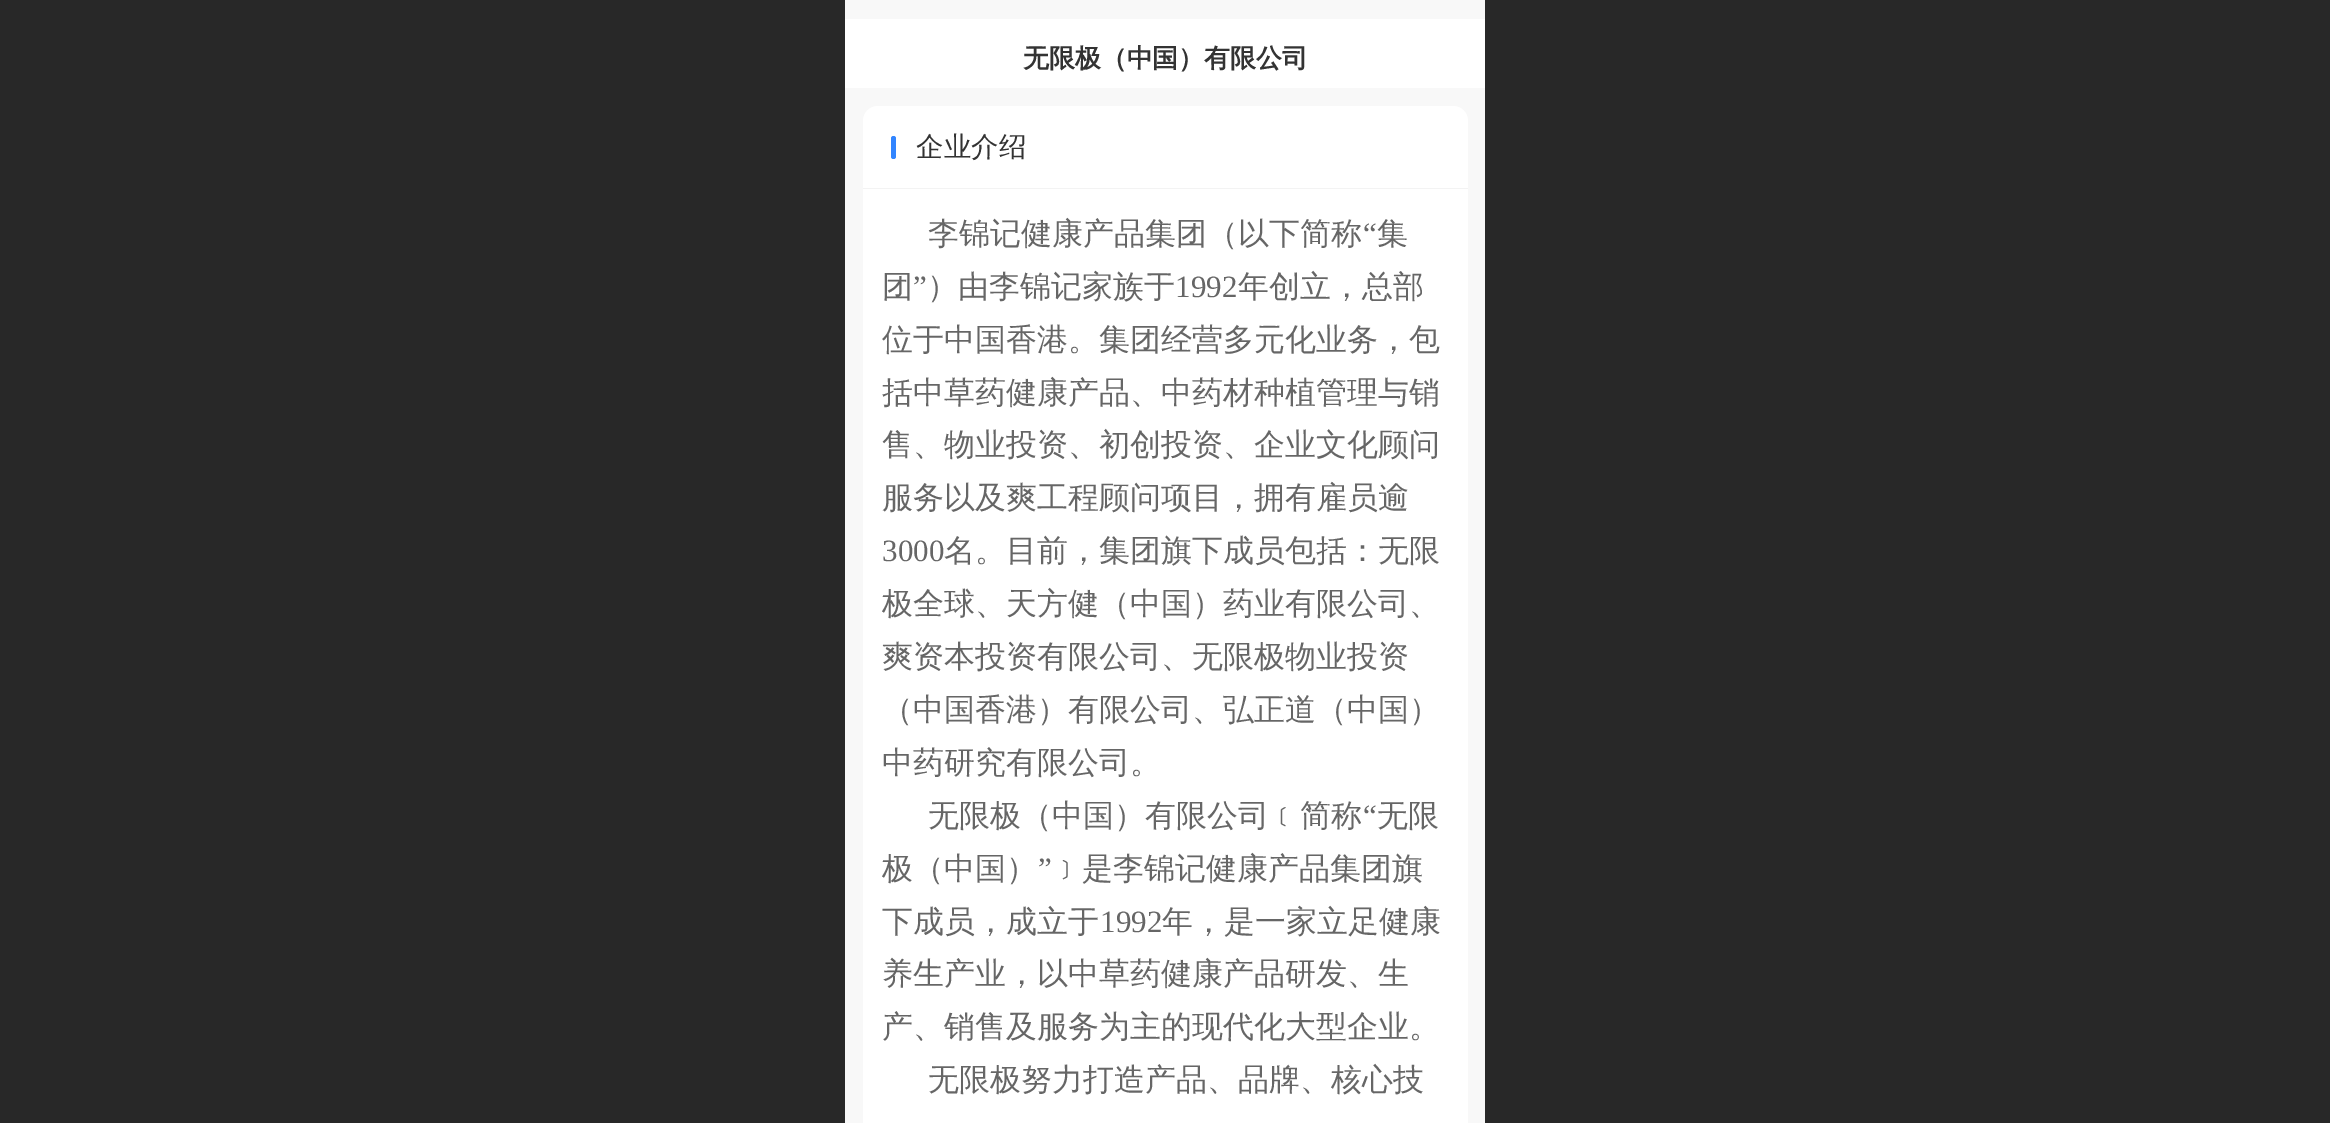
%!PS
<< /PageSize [2330 1123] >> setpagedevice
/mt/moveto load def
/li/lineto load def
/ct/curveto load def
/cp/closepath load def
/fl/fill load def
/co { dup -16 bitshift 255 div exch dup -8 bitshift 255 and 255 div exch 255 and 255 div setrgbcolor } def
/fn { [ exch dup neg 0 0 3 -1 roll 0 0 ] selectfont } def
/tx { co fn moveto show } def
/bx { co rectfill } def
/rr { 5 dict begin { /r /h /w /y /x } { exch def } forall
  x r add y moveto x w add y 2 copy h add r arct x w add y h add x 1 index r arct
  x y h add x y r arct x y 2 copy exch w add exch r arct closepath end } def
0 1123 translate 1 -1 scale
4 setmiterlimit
0 0 2330 1123 16#F8F8F8 bx
0 0 845 1123 16#282828 bx
845 19 640 69 16#FFFFFF bx
878 106 mt 1453 106 li 1461.5 106 1468 112.5 1468 121 ct 1468 189 li 863 189 li 863 121 li 863 112.5 869.5 106 878 106 ct cp fl
863 188 605 1 16#F3F3F3 bx
16#3285FF co
891 136 5 23 2.5 rr fl
863 189 605 934 16#FFFFFF bx
1485 0 845 1123 16#282828 bx
(无限极（中国）有限公司) 1023 67 /WenQuanYiZenHei-Bold 25.9 16#333333 tx
(企业介绍) 916 156 /WenQuanYiZenHei-Medium 27.5 16#333333 tx
(李锦记健康产品集团（以下简称) 928 244 /WenQuanYiZenHei-Medium 31 16#666666 tx
(“) 1363 244 /LiberationSerif-Regular 31 16#666666 tx
(集) 1377 244 /WenQuanYiZenHei-Medium 31 16#666666 tx
(团) 882 297 /WenQuanYiZenHei-Medium 31 16#666666 tx
(”) 913 297 /LiberationSerif-Regular 31 16#666666 tx
(）由李锦记家族于) 927 297 /WenQuanYiZenHei-Medium 31 16#666666 tx
(1992) 1175 297 /LiberationSerif-Regular 31 16#666666 tx
(年创立，总部) 1238 297 /WenQuanYiZenHei-Medium 31 16#666666 tx
(位于中国香港。集团经营多元化业务，包) 882 350 /WenQuanYiZenHei-Medium 31 16#666666 tx
(括中草药健康产品、中药材种植管理与销) 882 403 /WenQuanYiZenHei-Medium 31 16#666666 tx
(售、物业投资、初创投资、企业文化顾问) 882 455 /WenQuanYiZenHei-Medium 31 16#666666 tx
(服务以及爽工程顾问项目，拥有雇员逾) 882 508 /WenQuanYiZenHei-Medium 31 16#666666 tx
(3000) 882 561 /LiberationSerif-Regular 31 16#666666 tx
(名。目前，集团旗下成员包括：无限) 944 561 /WenQuanYiZenHei-Medium 31 16#666666 tx
(极全球、天方健（中国）药业有限公司、) 882 614 /WenQuanYiZenHei-Medium 31 16#666666 tx
(爽资本投资有限公司、无限极物业投资) 882 667 /WenQuanYiZenHei-Medium 31 16#666666 tx
(（中国香港）有限公司、弘正道（中国）) 882 720 /WenQuanYiZenHei-Medium 31 16#666666 tx
(中药研究有限公司。) 882 773 /WenQuanYiZenHei-Medium 31 16#666666 tx
(无限极（中国）有限公司﹝简称) 928 826 /WenQuanYiZenHei-Medium 31 16#666666 tx
(“) 1363 826 /LiberationSerif-Regular 31 16#666666 tx
(无限) 1377 826 /WenQuanYiZenHei-Medium 31 16#666666 tx
(极（中国）) 882 879 /WenQuanYiZenHei-Medium 31 16#666666 tx
(”) 1038 879 /LiberationSerif-Regular 31 16#666666 tx
(﹞是李锦记健康产品集团旗) 1051 879 /WenQuanYiZenHei-Medium 31 16#666666 tx
(下成员，成立于) 882 932 /WenQuanYiZenHei-Medium 31 16#666666 tx
(1992) 1100 932 /LiberationSerif-Regular 31 16#666666 tx
(年，是一家立足健康) 1162 932 /WenQuanYiZenHei-Medium 31 16#666666 tx
(养生产业，以中草药健康产品研发、生) 882 984 /WenQuanYiZenHei-Medium 31 16#666666 tx
(产、销售及服务为主的现代化大型企业。) 882 1037 /WenQuanYiZenHei-Medium 31 16#666666 tx
(无限极努力打造产品、品牌、核心技) 928 1090 /WenQuanYiZenHei-Medium 31 16#666666 tx
showpage
